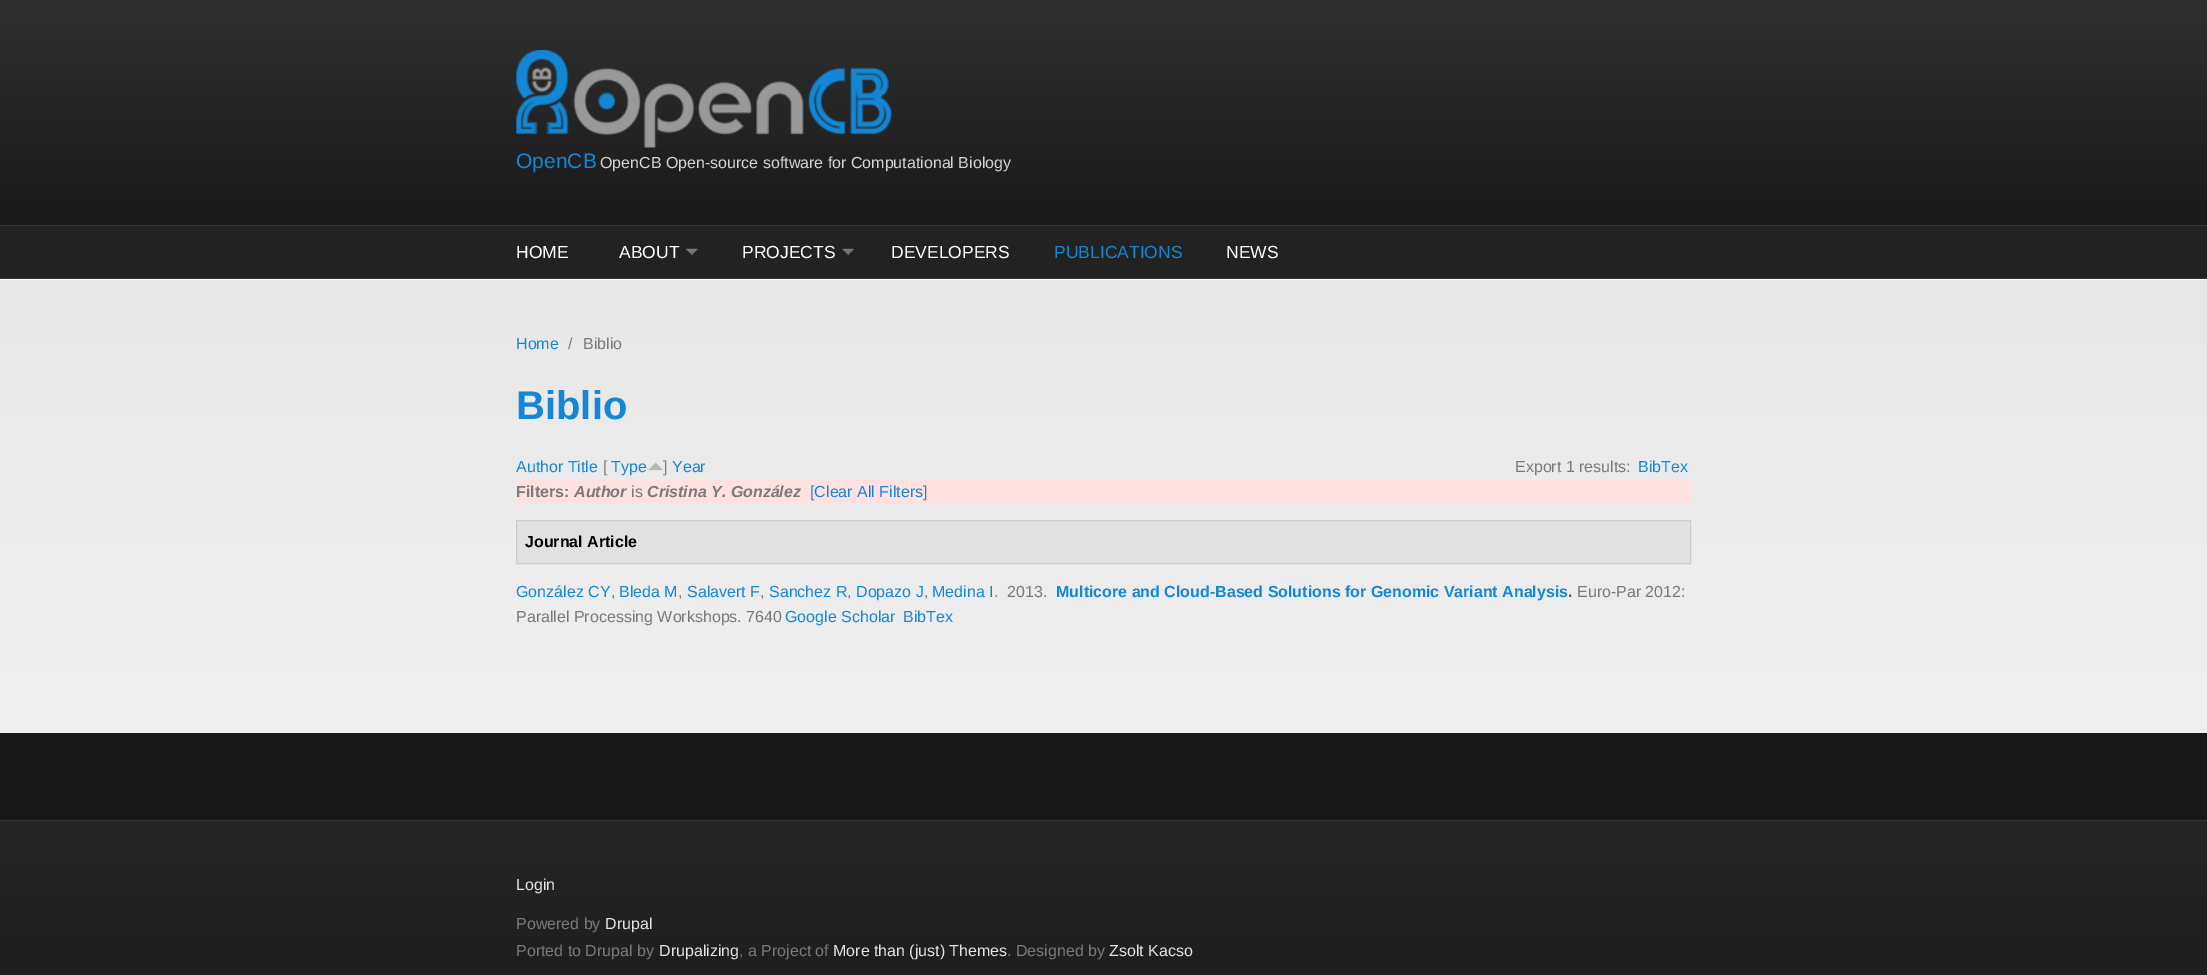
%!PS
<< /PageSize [2207 975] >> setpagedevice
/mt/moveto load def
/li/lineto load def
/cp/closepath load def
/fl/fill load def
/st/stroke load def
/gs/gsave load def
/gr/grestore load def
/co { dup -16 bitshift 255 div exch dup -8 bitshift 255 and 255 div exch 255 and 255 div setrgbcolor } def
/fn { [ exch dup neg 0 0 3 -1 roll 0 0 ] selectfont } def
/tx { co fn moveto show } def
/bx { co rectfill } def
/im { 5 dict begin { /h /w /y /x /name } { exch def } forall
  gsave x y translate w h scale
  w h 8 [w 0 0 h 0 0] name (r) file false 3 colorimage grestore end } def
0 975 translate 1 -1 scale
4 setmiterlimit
0 0 2207 975 16#FFFFFF bx
gs 0 0 mt 2207 0 li 2207 225 li 0 225 li cp clip newpath
<< /ShadingType 2 /ColorSpace /DeviceRGB /Coords [1104 0 1104 225] /Extend [true true] /Function << /FunctionType 2 /Domain [0 1] /C0 [.184 .184 .184] /C1 [.106 .102 .102] /N 1 >> >> shfill gr
(media/1.raw) 516 50 376 98 im
0 226 2207 52 16#222222 bx
0 225 2207 1 16#353535 bx
0 278 2207 1 16#353535 bx
(media/2.raw) 686 248 12 8 im
(media/3.raw) 842 248 12 8 im
0 279 2207 1 16#FCFCFC bx
gs 0 280 mt 2207 280 li 2207 733 li 0 733 li cp clip newpath
<< /ShadingType 2 /ColorSpace /DeviceRGB /Coords [1104 280 1104 733] /Extend [true true] /Function << /FunctionType 2 /Domain [0 1] /C0 [.91 .91 .91] /C1 [.937 .937 .937] /N 1 >> >> shfill gr
(media/4.raw) 648 462 15 9 im
516 480 1175 24 16#FFE1E1 bx
16#E1E1E1 co
516.5 520.5 mt 1690.5 520.5 li 1690.5 563.5 li 516.5 563.5 li cp gs fl gr
16#CCCCCC co
st
0 733 2207 87 16#181818 bx
gs 0 821 mt 2207 821 li 2207 975 li 0 975 li cp clip newpath
<< /ShadingType 2 /ColorSpace /DeviceRGB /Coords [1104 821 1104 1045] /Extend [true true] /Function << /FunctionType 2 /Domain [0 1] /C0 [.149 .149 .149] /C1 [.102 .102 .102] /N 1 >> >> shfill gr
0 820 2207 1 16#353535 bx
(OpenCB) 516 168 /LiberationSans-Regular 21 16#1487D4 tx
(OpenCB Open-source software for Computational Biology) 600 168 /LiberationSans-Regular 16 16#D5D5D5 tx
(HOME) 516 258 /LiberationSans-Regular 17.5 16#FFFFFF tx
(ABOUT) 619 258 /LiberationSans-Regular 17.5 16#FFFFFF tx
(PROJECTS) 742 258 /LiberationSans-Regular 17.5 16#FFFFFF tx
(DEVELOPERS) 891 258 /LiberationSans-Regular 17.5 16#FFFFFF tx
(PUBLICATIONS) 1054 258 /LiberationSans-Regular 17.5 16#1487D4 tx
(NEWS) 1226 258 /LiberationSans-Regular 17.5 16#FFFFFF tx
(Home) 516 349 /LiberationSans-Regular 16 16#1487D4 tx
(/) 568 349 /LiberationSans-Regular 16 16#7A7A7A tx
(Biblio) 583 349 /LiberationSans-Regular 16 16#7A7A7A tx
(Biblio) 516 419 /LiberationSans-Bold 40 16#1487D4 tx
(Author Title) 516 472 /LiberationSans-Regular 16 16#1487D4 tx
([) 603 472 /LiberationSans-Regular 16 16#7A7A7A tx
(Type) 611 472 /LiberationSans-Regular 16 16#1487D4 tx
(]) 663 472 /LiberationSans-Regular 16 16#7A7A7A tx
(Year) 672 472 /LiberationSans-Regular 16 16#1487D4 tx
(Export 1 results:) 1515 472 /LiberationSans-Regular 16 16#7A7A7A tx
(BibTex) 1638 472 /LiberationSans-Regular 16 16#1487D4 tx
(Filters:) 516 497 /LiberationSans-Bold 16 16#7A7A7A tx
(Author) 574 497 /LiberationSans-BoldItalic 16 16#7A7A7A tx
(is) 631 497 /LiberationSans-Regular 16 16#7A7A7A tx
(Cristina Y. González) 647 497 /LiberationSans-BoldItalic 16 16#7A7A7A tx
([Clear All Filters]) 810 497 /LiberationSans-Regular 16 16#1487D4 tx
(Journal Article) 525 547 /LiberationSans-Bold 16 16#000000 tx
(González CY) 516 597 /LiberationSans-Regular 16 16#1487D4 tx
(,) 611 597 /LiberationSans-Regular 16 16#7A7A7A tx
(Bleda M) 619 597 /LiberationSans-Regular 16 16#1487D4 tx
(,) 678 597 /LiberationSans-Regular 16 16#7A7A7A tx
(Salavert F) 687 597 /LiberationSans-Regular 16 16#1487D4 tx
(,) 760 597 /LiberationSans-Regular 16 16#7A7A7A tx
(Sanchez R) 769 597 /LiberationSans-Regular 16 16#1487D4 tx
(,) 847 597 /LiberationSans-Regular 16 16#7A7A7A tx
(Dopazo J) 856 597 /LiberationSans-Regular 16 16#1487D4 tx
(,) 924 597 /LiberationSans-Regular 16 16#7A7A7A tx
(Medina I) 932 597 /LiberationSans-Regular 16 16#1487D4 tx
(.) 994 597 /LiberationSans-Regular 16 16#7A7A7A tx
(2013.) 1007 597 /LiberationSans-Regular 16 16#7A7A7A tx
(Multicore and Cloud-Based Solutions for Genomic Variant Analysis) 1056 597 /LiberationSans-Bold 16 16#1487D4 tx
(.) 1568 597 /LiberationSans-Bold 16 16#336599 tx
(Euro-Par 2012:) 1577 597 /LiberationSans-Regular 16 16#7A7A7A tx
(Parallel Processing Workshops. 7640) 516 622 /LiberationSans-Regular 16 16#7A7A7A tx
(Google Scholar) 785 622 /LiberationSans-Regular 16 16#1487D4 tx
(BibTex) 903 622 /LiberationSans-Regular 16 16#1487D4 tx
(Login) 516 890 /LiberationSans-Regular 16 16#E4E4E4 tx
(Powered by) 516 929 /LiberationSans-Regular 16 16#7A7A7A tx
(Drupal) 605 929 /LiberationSans-Regular 16 16#E4E4E4 tx
(Ported to Drupal by) 516 956 /LiberationSans-Regular 16 16#7A7A7A tx
(Drupalizing) 659 956 /LiberationSans-Regular 16 16#E4E4E4 tx
(, a Project of) 739 956 /LiberationSans-Regular 16 16#7A7A7A tx
(More than \(just\) Themes) 833 956 /LiberationSans-Regular 16 16#E4E4E4 tx
(. Designed by) 1007 956 /LiberationSans-Regular 16 16#7A7A7A tx
(Zsolt Kacso) 1109 956 /LiberationSans-Regular 16 16#E4E4E4 tx
showpage
